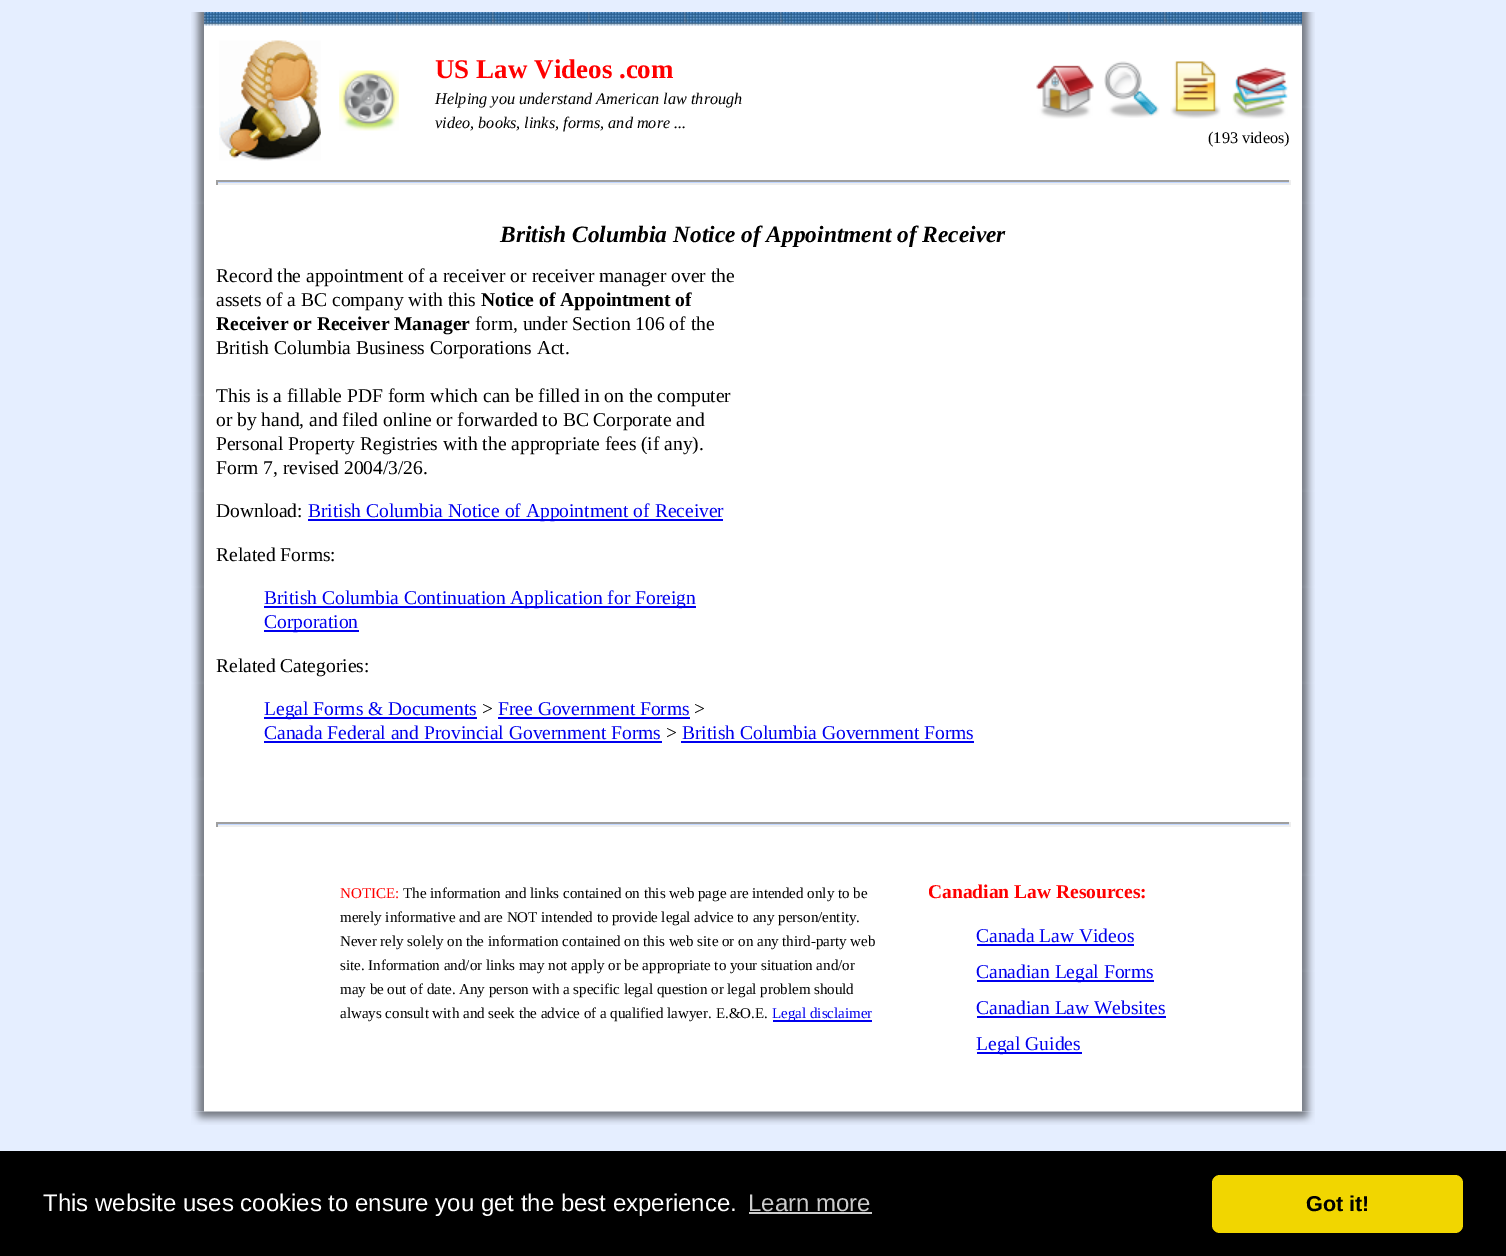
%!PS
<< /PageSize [1506 1256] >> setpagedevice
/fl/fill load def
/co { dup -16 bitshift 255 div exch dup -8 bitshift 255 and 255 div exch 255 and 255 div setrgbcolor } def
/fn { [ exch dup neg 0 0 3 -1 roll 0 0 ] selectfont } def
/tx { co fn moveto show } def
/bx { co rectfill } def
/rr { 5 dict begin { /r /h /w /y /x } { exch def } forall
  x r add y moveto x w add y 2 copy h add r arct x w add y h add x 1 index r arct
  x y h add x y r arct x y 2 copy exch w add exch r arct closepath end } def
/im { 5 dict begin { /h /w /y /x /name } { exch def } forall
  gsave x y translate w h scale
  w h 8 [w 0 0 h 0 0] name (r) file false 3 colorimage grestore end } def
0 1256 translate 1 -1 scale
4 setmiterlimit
0 0 1506 1256 16#E5EEFF bx
(media/1.raw) 191 12 13 1100 im
(media/2.raw) 204 12 1098 14 im
(media/3.raw) 1302 12 13 1100 im
204 26 1098 1086 16#FFFFFF bx
(media/4.raw) 219 40 102 121 im
(media/5.raw) 339 70 60 61 im
(media/6.raw) 1036 65 58 54 im
(media/7.raw) 1104 61 56 57 im
(media/8.raw) 1170 61 51 58 im
(media/9.raw) 1232 67 56 52 im
216 182 1074 1 16#C1D7FF bx
216 180 1074 2 16#9F9F9F bx
1289 180 2 5 16#EEEEEE bx
216 183 1074 2 16#EEEEEE bx
216 180 2 5 16#9F9F9F bx
308 519 415 2 16#0000EE bx
264 606 432 2 16#0000EE bx
264 630 95 2 16#0000EE bx
264 717 213 2 16#0000EE bx
498 717 192 2 16#0000EE bx
264 741 398 2 16#0000EE bx
681 741 293 2 16#0000EE bx
216 824 1074 1 16#C1D7FF bx
216 822 1074 2 16#9F9F9F bx
1289 822 2 5 16#EEEEEE bx
216 825 1074 2 16#EEEEEE bx
216 822 2 5 16#9F9F9F bx
773 1020 99 2 16#0000EE bx
977 944 157 2 16#0000EE bx
977 980 177 2 16#0000EE bx
977 1016 189 2 16#0000EE bx
977 1052 105 2 16#0000EE bx
(media/10.raw) 191 1111 1124 14 im
0 1151 1506 105 16#000000 bx
749 1212 123 2 16#CCCCCC bx
16#F1D600 co
1212 1175 251 58 8 rr fl
(US Law Videos .com) 435 78 /LiberationSerif-Bold 27 16#FF0000 tx
(Helping you understand American law through) 435 104 /LiberationSerif-Italic 16.25 16#000000 tx
(video, books, links, forms, and more ...) 435 128 /LiberationSerif-Italic 16.25 16#000000 tx
(\(193 videos\)) 1208 143 /LiberationSerif-Regular 16.25 16#000000 tx
(British Columbia Notice of Appointment of Receiver) 500 242 /LiberationSerif-BoldItalic 23.4 16#000000 tx
(Record the appointment of a receiver or receiver manager over the) 216 282 /LiberationSerif-Regular 19.5 16#000000 tx
(assets of a BC company with this) 216 306 /LiberationSerif-Regular 19.5 16#000000 tx
(Notice of Appointment of) 481 306 /LiberationSerif-Bold 19.5 16#000000 tx
(Receiver or Receiver Manager) 216 330 /LiberationSerif-Bold 19.5 16#000000 tx
(form, under Section 106 of the) 475 330 /LiberationSerif-Regular 19.5 16#000000 tx
(British Columbia Business Corporations Act.) 216 354 /LiberationSerif-Regular 19.5 16#000000 tx
(This is a fillable PDF form which can be filled in on the computer) 216 402 /LiberationSerif-Regular 19.5 16#000000 tx
(or by hand, and filed online or forwarded to BC Corporate and) 216 426 /LiberationSerif-Regular 19.5 16#000000 tx
(Personal Property Registries with the appropriate fees \(if any\).) 216 450 /LiberationSerif-Regular 19.5 16#000000 tx
(Form 7, revised 2004/3/26.) 216 474 /LiberationSerif-Regular 19.5 16#000000 tx
(Download:) 216 517 /LiberationSerif-Regular 19.5 16#000000 tx
(British Columbia Notice of Appointment of Receiver) 308 517 /LiberationSerif-Regular 19.5 16#0000EE tx
(Related Forms:) 216 561 /LiberationSerif-Regular 19.5 16#000000 tx
(British Columbia Continuation Application for Foreign) 264 604 /LiberationSerif-Regular 19.5 16#0000EE tx
(Corporation) 264 628 /LiberationSerif-Regular 19.5 16#0000EE tx
(Related Categories:) 216 672 /LiberationSerif-Regular 19.5 16#000000 tx
(Legal Forms & Documents) 264 715 /LiberationSerif-Regular 19.5 16#0000EE tx
(>) 482 715 /LiberationSerif-Regular 19.5 16#000000 tx
(Free Government Forms) 498 715 /LiberationSerif-Regular 19.5 16#0000EE tx
(>) 694 715 /LiberationSerif-Regular 19.5 16#000000 tx
(Canada Federal and Provincial Government Forms) 264 739 /LiberationSerif-Regular 19.5 16#0000EE tx
(>) 666 739 /LiberationSerif-Regular 19.5 16#000000 tx
(British Columbia Government Forms) 682 739 /LiberationSerif-Regular 19.5 16#0000EE tx
(NOTICE:) 340 898 /LiberationSerif-Regular 15 16#FF0000 tx
(The information and links contained on this web page are intended only to be) 403 898 /LiberationSerif-Regular 15 16#000000 tx
(merely informative and are NOT intended to provide legal advice to any person/entity.) 340 922 /LiberationSerif-Regular 15 16#000000 tx
(Never rely solely on the information contained on this web site or on any third-party web) 340 946 /LiberationSerif-Regular 15 16#000000 tx
(site. Information and/or links may not apply or be appropriate to your situation and/or) 340 970 /LiberationSerif-Regular 15 16#000000 tx
(may be out of date. Any person with a specific legal question or legal problem should) 340 994 /LiberationSerif-Regular 15 16#000000 tx
(always consult with and seek the advice of a qualified lawyer. E.&O.E.) 340 1018 /LiberationSerif-Regular 15 16#000000 tx
(Legal disclaimer) 772 1018 /LiberationSerif-Regular 15 16#0000EE tx
(Canadian Law Resources:) 928 898 /LiberationSerif-Bold 19.5 16#FF0000 tx
(Canada Law Videos) 976 942 /LiberationSerif-Regular 19.5 16#0000EE tx
(Canadian Legal Forms) 976 978 /LiberationSerif-Regular 19.5 16#0000EE tx
(Canadian Law Websites) 976 1014 /LiberationSerif-Regular 19.5 16#0000EE tx
(Legal Guides) 976 1050 /LiberationSerif-Regular 19.5 16#0000EE tx
(This website uses cookies to ensure you get the best experience.) 43 1211 /LiberationSans-Regular 24 16#FFFFFF tx
(Learn more) 748 1211 /LiberationSans-Regular 24 16#CCCCCC tx
(Got it!) 1306 1211 /LiberationSans-Bold 21.5 16#000000 tx
showpage
